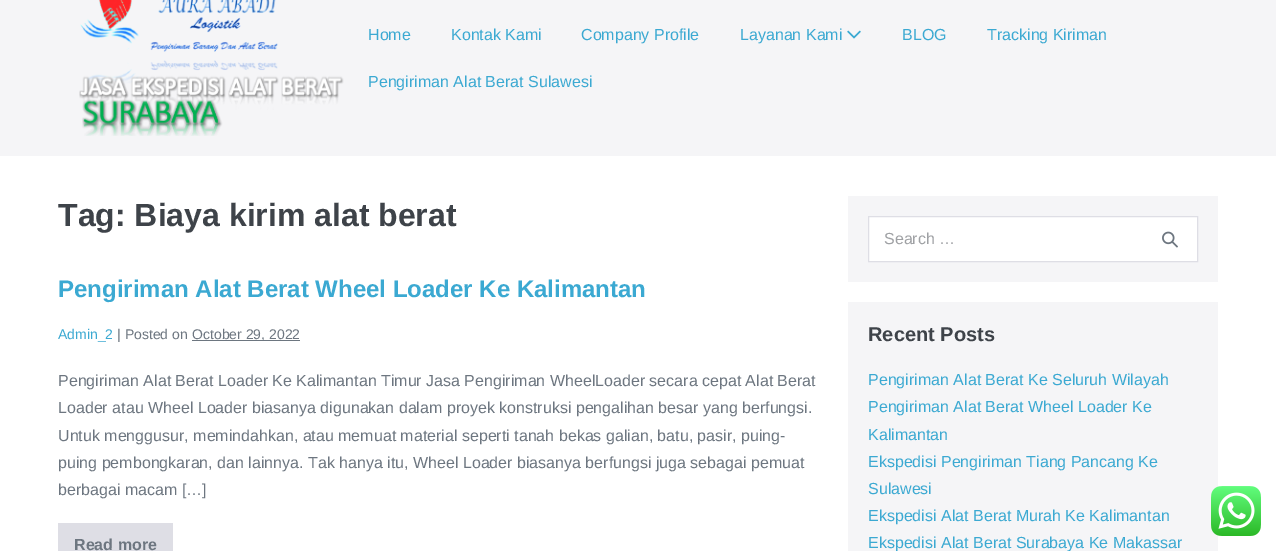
%!PS
<< /PageSize [1276 551] >> setpagedevice
/mt/moveto load def
/li/lineto load def
/cp/closepath load def
/fl/fill load def
/st/stroke load def
/gs/gsave load def
/gr/grestore load def
/co { dup -16 bitshift 255 div exch dup -8 bitshift 255 and 255 div exch 255 and 255 div setrgbcolor } def
/fn { [ exch dup neg 0 0 3 -1 roll 0 0 ] selectfont } def
/tx { co fn moveto show } def
/bx { co rectfill } def
/im { 5 dict begin { /h /w /y /x /name } { exch def } forall
  gsave x y translate w h scale
  w h 8 [w 0 0 h 0 0] name (r) file false 3 colorimage grestore end } def
0 551 translate 1 -1 scale
4 setmiterlimit
0 0 1276 551 16#FFFFFF bx
0 0 1276 156 16#F5F5F7 bx
(media/1.raw) 79 0 265 136 im
(media/2.raw) 847 30 14 9 im
192 340 108 1 16#6D7680 bx
58 523 115 28 16#DEDEE5 bx
848 196 370 86 16#F5F5F7 bx
16#FFFFFF co
868.5 216.5 mt 1197.5 216.5 li 1197.5 261.5 li 868.5 261.5 li cp gs fl gr
16#DEDEE5 co
st
(media/3.raw) 1162 231 16 17 im
848 302 370 249 16#F5F5F7 bx
(media/4.raw) 1211 486 50 50 im
(Home) 368 40 /LiberationSans-Regular 16 16#3BA9D2 tx
(Kontak Kami) 451 40 /LiberationSans-Regular 16 16#3BA9D2 tx
(Company Profile) 581 40 /LiberationSans-Regular 16 16#3BA9D2 tx
(Layanan Kami) 740 40 /LiberationSans-Regular 16 16#3BA9D2 tx
(BLOG) 902 40 /LiberationSans-Regular 16 16#3BA9D2 tx
(Tracking Kiriman) 987 40 /LiberationSans-Regular 16 16#3BA9D2 tx
(Pengiriman Alat Berat Sulawesi) 368 87 /LiberationSans-Regular 16 16#3BA9D2 tx
(Tag: Biaya kirim alat berat) 58 226 /LiberationSans-Bold 32 16#3E4349 tx
(Pengiriman Alat Berat Wheel Loader Ke Kalimantan) 58 297 /LiberationSans-Bold 24 16#3BA9D2 tx
(Admin_2) 58 339 /LiberationSans-Regular 14 16#3BA9D2 tx
(| Posted on) 117 339 /LiberationSans-Regular 14 16#6D7680 tx
(October 29, 2022) 192 339 /LiberationSans-Regular 14 16#6D7680 tx
(Pengiriman Alat Berat Loader Ke Kalimantan Timur Jasa Pengiriman WheelLoader secara cepat Alat Berat) 58 386 /LiberationSans-Regular 16 16#6D7680 tx
(Loader atau Wheel Loader biasanya digunakan dalam proyek konstruksi pengalihan besar yang berfungsi.) 58 413 /LiberationSans-Regular 16 16#6D7680 tx
(Untuk menggusur, memindahkan, atau memuat material seperti tanah bekas galian, batu, pasir, puing-) 58 441 /LiberationSans-Regular 16 16#6D7680 tx
(puing pembongkaran, dan lainnya. Tak hanya itu, Wheel Loader biasanya berfungsi juga sebagai pemuat) 58 468 /LiberationSans-Regular 16 16#6D7680 tx
(berbagai macam […]) 58 495 /LiberationSans-Regular 16 16#6D7680 tx
(Read more) 74 550 /LiberationSans-Bold 16 16#6D7680 tx
(Search …) 884 244 /LiberationSans-Regular 16 16#9FA1A4 tx
(Recent Posts) 868 341 /LiberationSans-Bold 20 16#3E4349 tx
(Pengiriman Alat Berat Ke Seluruh Wilayah) 868 385 /LiberationSans-Regular 16 16#3BA9D2 tx
(Pengiriman Alat Berat Wheel Loader Ke) 868 412 /LiberationSans-Regular 16 16#3BA9D2 tx
(Kalimantan) 868 440 /LiberationSans-Regular 16 16#3BA9D2 tx
(Ekspedisi Pengiriman Tiang Pancang Ke) 868 467 /LiberationSans-Regular 16 16#3BA9D2 tx
(Sulawesi) 868 494 /LiberationSans-Regular 16 16#3BA9D2 tx
(Ekspedisi Alat Berat Murah Ke Kalimantan) 868 521 /LiberationSans-Regular 16 16#3BA9D2 tx
(Ekspedisi Alat Berat Surabaya Ke Makassar) 868 548 /LiberationSans-Regular 16 16#3BA9D2 tx
showpage
